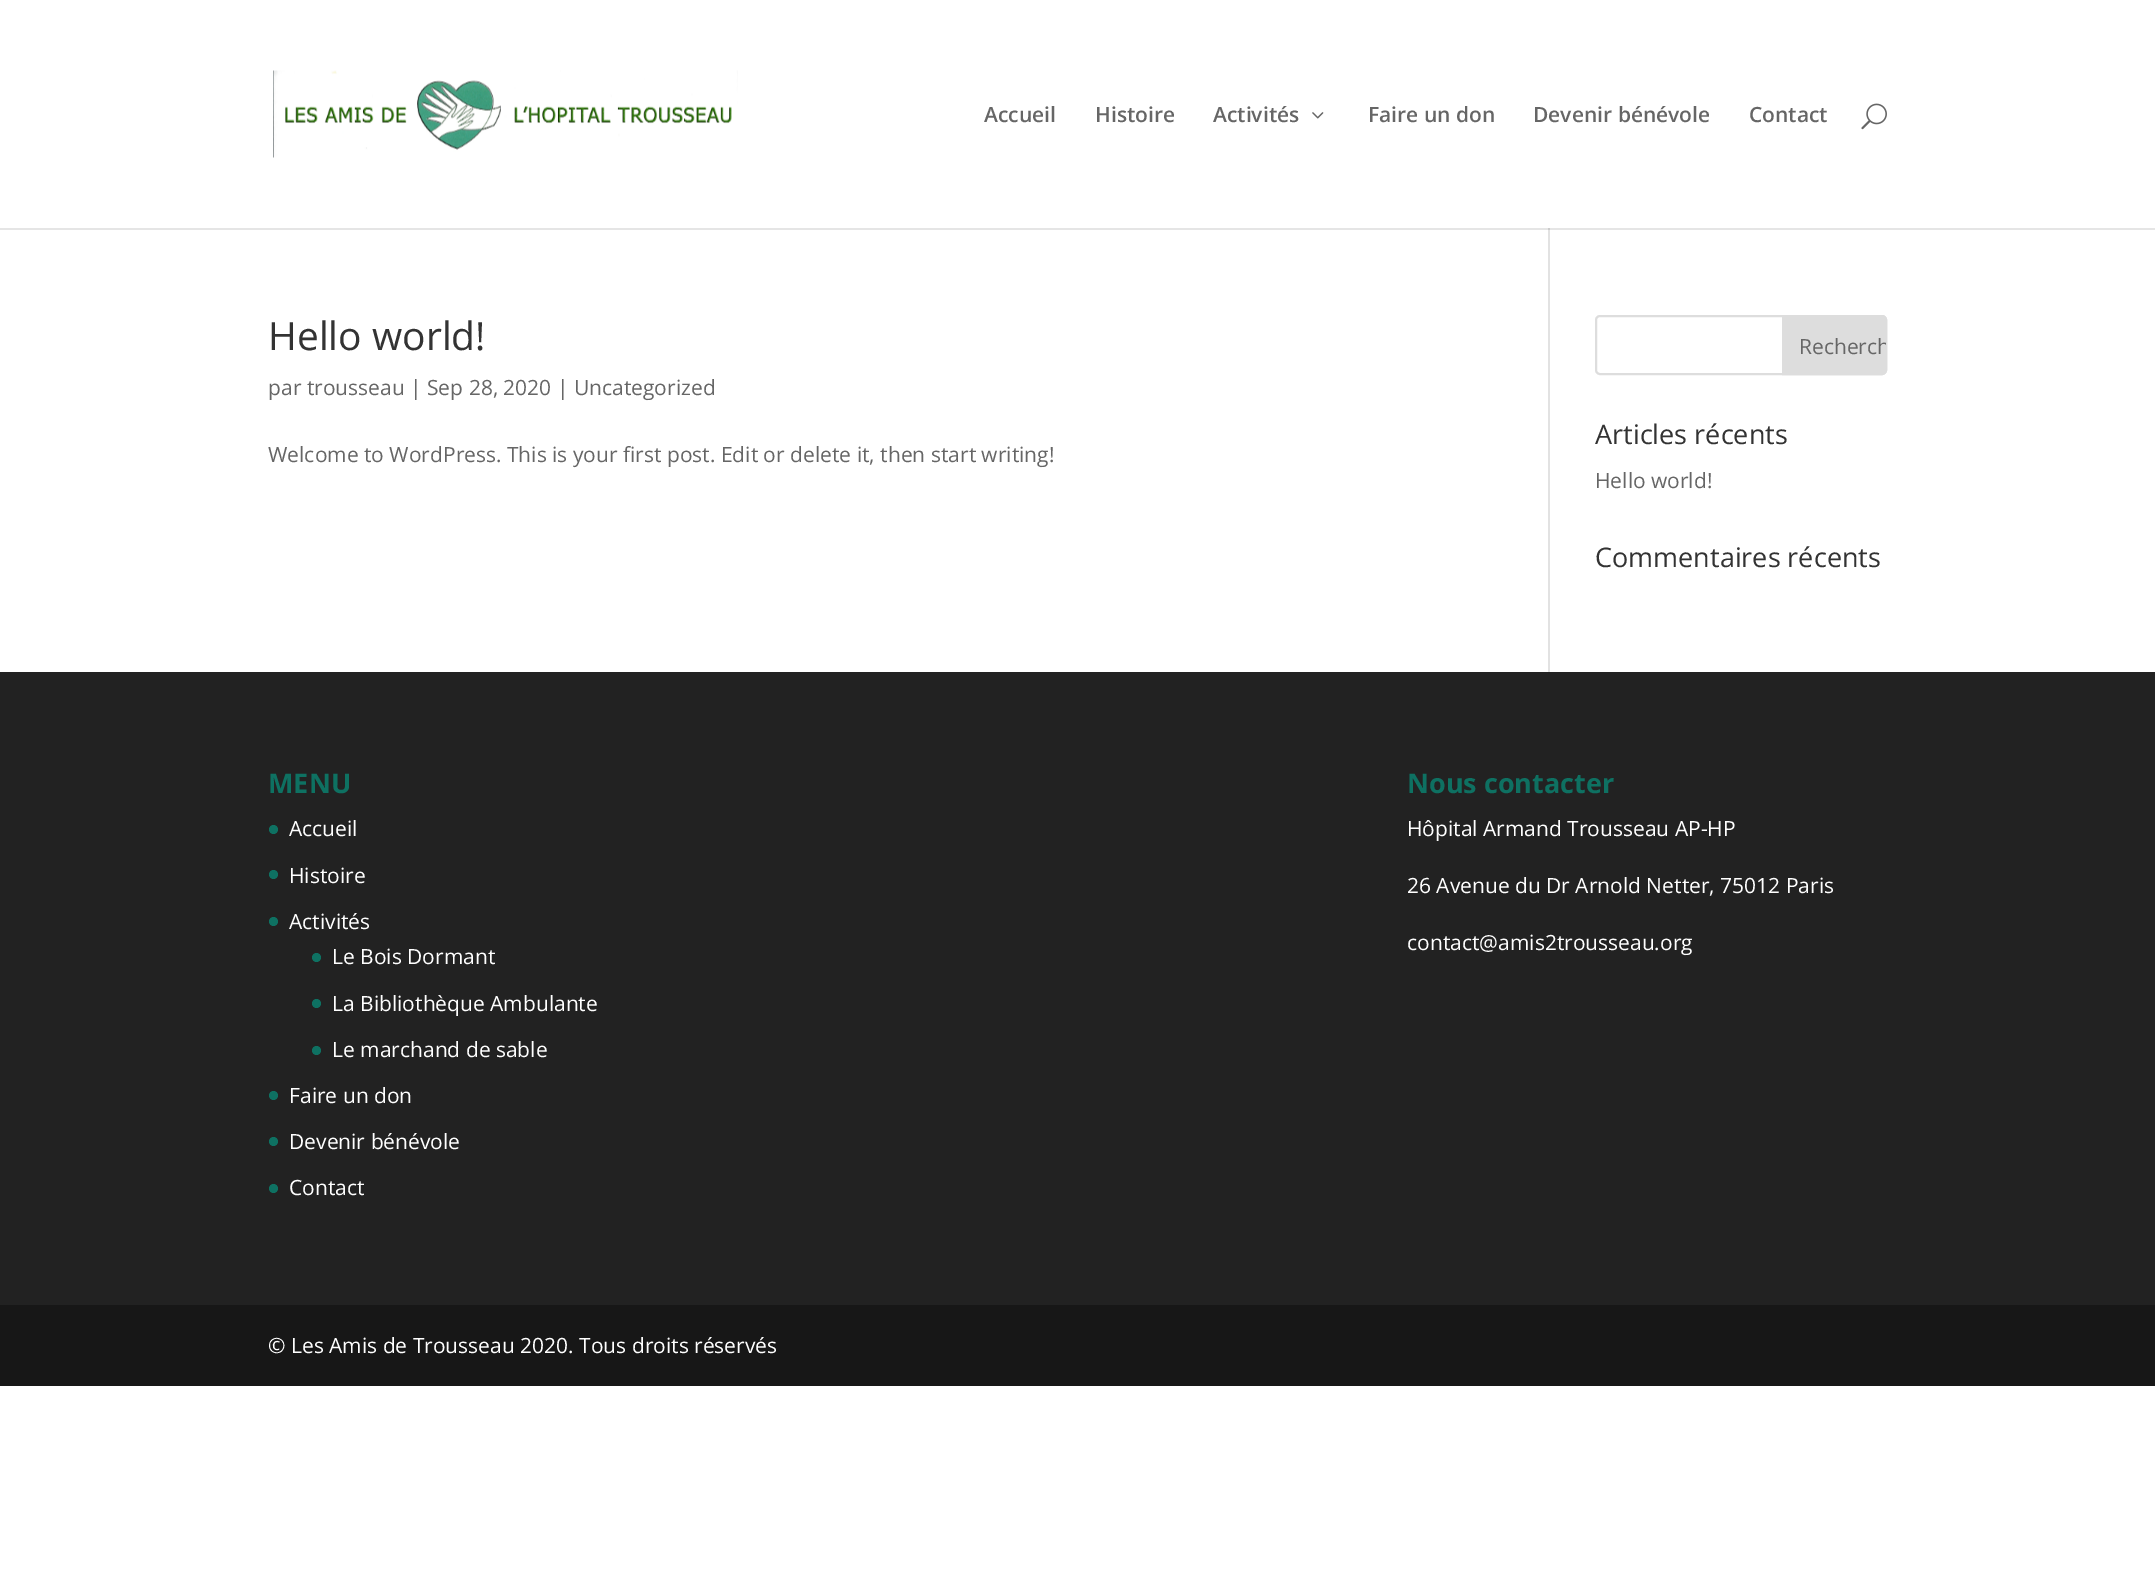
%!PS
<< /PageSize [2155 1583] /PageUsesTransparency true >> setpagedevice
/mt/moveto load def
/li/lineto load def
/ct/curveto load def
/cp/closepath load def
/fl/fill load def
/st/stroke load def
/gs/gsave load def
/gr/grestore load def
/lw/setlinewidth load def
/co { dup -16 bitshift 255 div exch dup -8 bitshift 255 and 255 div exch 255 and 255 div setrgbcolor } def
/fn { [ exch dup neg 0 0 3 -1 roll 0 0 ] selectfont } def
/tx { co fn moveto show } def
/bx { co rectfill } def
/al { dup .setfillconstantalpha .setstrokeconstantalpha } def
/ci { newpath 0 360 arc closepath } def
/rr { 5 dict begin { /r /h /w /y /x } { exch def } forall
  x r add y moveto x w add y 2 copy h add r arct x w add y h add x 1 index r arct
  x y h add x y r arct x y 2 copy exch w add exch r arct closepath end } def
/im { 5 dict begin { /h /w /y /x /name } { exch def } forall
  gsave x y translate w h scale
  w h 8 [w 0 0 h 0 0] name (r) file false 3 colorimage grestore end } def
0 .pushpdf14devicefilter
0 1583 translate 1 -1 scale
4 setmiterlimit
0 0 2155 1583 16#FFFFFF bx
1548 228 2 444 16#E2E2E2 bx
0.1 al
16#000000 co
0 228 mt 0 230 li 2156 230 li 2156 2 li 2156 228 li cp fl
1 al
(media/1.raw) 273 70 465 88 im
(media/2.raw) 1312 112 12 7 im
(media/3.raw) 1861 103 26 27 im
16#DDDDDD co
2 lw
1596 316 290 58 4 rr st
1783 316 mt 1882 316 li 1884 316 1886 318 1886 320 ct 1886 370 li 1886 372 1884 374 1882 374 ct 1783 374 li cp gs fl gr
st
0 672 2155 633 16#222222 bx
16#0E7162 co
273.5 829.5 4.5 ci fl
273.5 874.5 4.5 ci fl
273.5 921.5 4.5 ci fl
316.5 957.5 4.5 ci fl
316.5 1003.5 4.5 ci fl
316.5 1050.5 4.5 ci fl
273.5 1095.5 4.5 ci fl
273.5 1141.5 4.5 ci fl
273.5 1188.5 4.5 ci fl
0 1305 2155 81 16#171717 bx
(Accueil) 984 122 /OpenSans-SemiBold 21 16#666666 tx
(Histoire) 1095 122 /OpenSans-SemiBold 21 16#666666 tx
(Activités) 1213 122 /OpenSans-SemiBold 21 16#666666 tx
(Faire un don) 1368 122 /OpenSans-SemiBold 21 16#666666 tx
(Devenir bénévole) 1533 122 /OpenSans-SemiBold 21 16#666666 tx
(Contact) 1749 122 /OpenSans-SemiBold 21 16#666666 tx
(Hello world!) 268 350 /OpenSans-Regular 39 16#333333 tx
(par trousseau | Sep 28, 2020 | Uncategorized) 268 395 /OpenSans-Regular 21 16#666666 tx
(Welcome to WordPress. This is your first post. Edit or delete it, then start writing!) 268 462 /OpenSans-Regular 21 16#666666 tx
gs
1784 317 mt 1883 317 li 1884.5 317 1886 318.5 1886 320 ct 1886 371 li 1886 372.5 1884.5 374 1883 374 ct 1784 374 li cp clip newpath
(Recherch) 1799 354 /OpenSans-Regular 21 16#666666 tx
gr
(Articles récents) 1595 444 /OpenSans-Regular 27 16#333333 tx
(Hello world!) 1595 488 /OpenSans-Regular 21 16#666666 tx
(Commentaires récents) 1595 567 /OpenSans-Regular 27 16#333333 tx
(MENU) 268 793 /OpenSans-Bold 27 16#0E7162 tx
(Accueil) 289 836 /OpenSans-Regular 21 16#FFFFFF tx
(Histoire) 289 883 /OpenSans-Regular 21 16#FFFFFF tx
(Activités) 289 929 /OpenSans-Regular 21 16#FFFFFF tx
(Le Bois Dormant) 332 964 /OpenSans-Regular 21 16#FFFFFF tx
(La Bibliothèque Ambulante) 332 1011 /OpenSans-Regular 21 16#FFFFFF tx
(Le marchand de sable) 332 1057 /OpenSans-Regular 21 16#FFFFFF tx
(Faire un don) 289 1103 /OpenSans-Regular 21 16#FFFFFF tx
(Devenir bénévole) 289 1149 /OpenSans-Regular 21 16#FFFFFF tx
(Contact) 289 1195 /OpenSans-Regular 21 16#FFFFFF tx
(Nous contacter) 1407 793 /OpenSans-Bold 27 16#0E7162 tx
(Hôpital Armand Trousseau AP-HP) 1407 836 /OpenSans-Regular 21 16#FFFFFF tx
(26 Avenue du Dr Arnold Netter, 75012 Paris) 1407 893 /OpenSans-Regular 21 16#FFFFFF tx
(contact@amis2trousseau.org) 1407 950 /OpenSans-Regular 21 16#FFFFFF tx
(© Les Amis de Trousseau 2020. Tous droits réservés) 268 1353 /OpenSans-Regular 21 16#FFFFFF tx
.poppdf14devicefilter showpage
